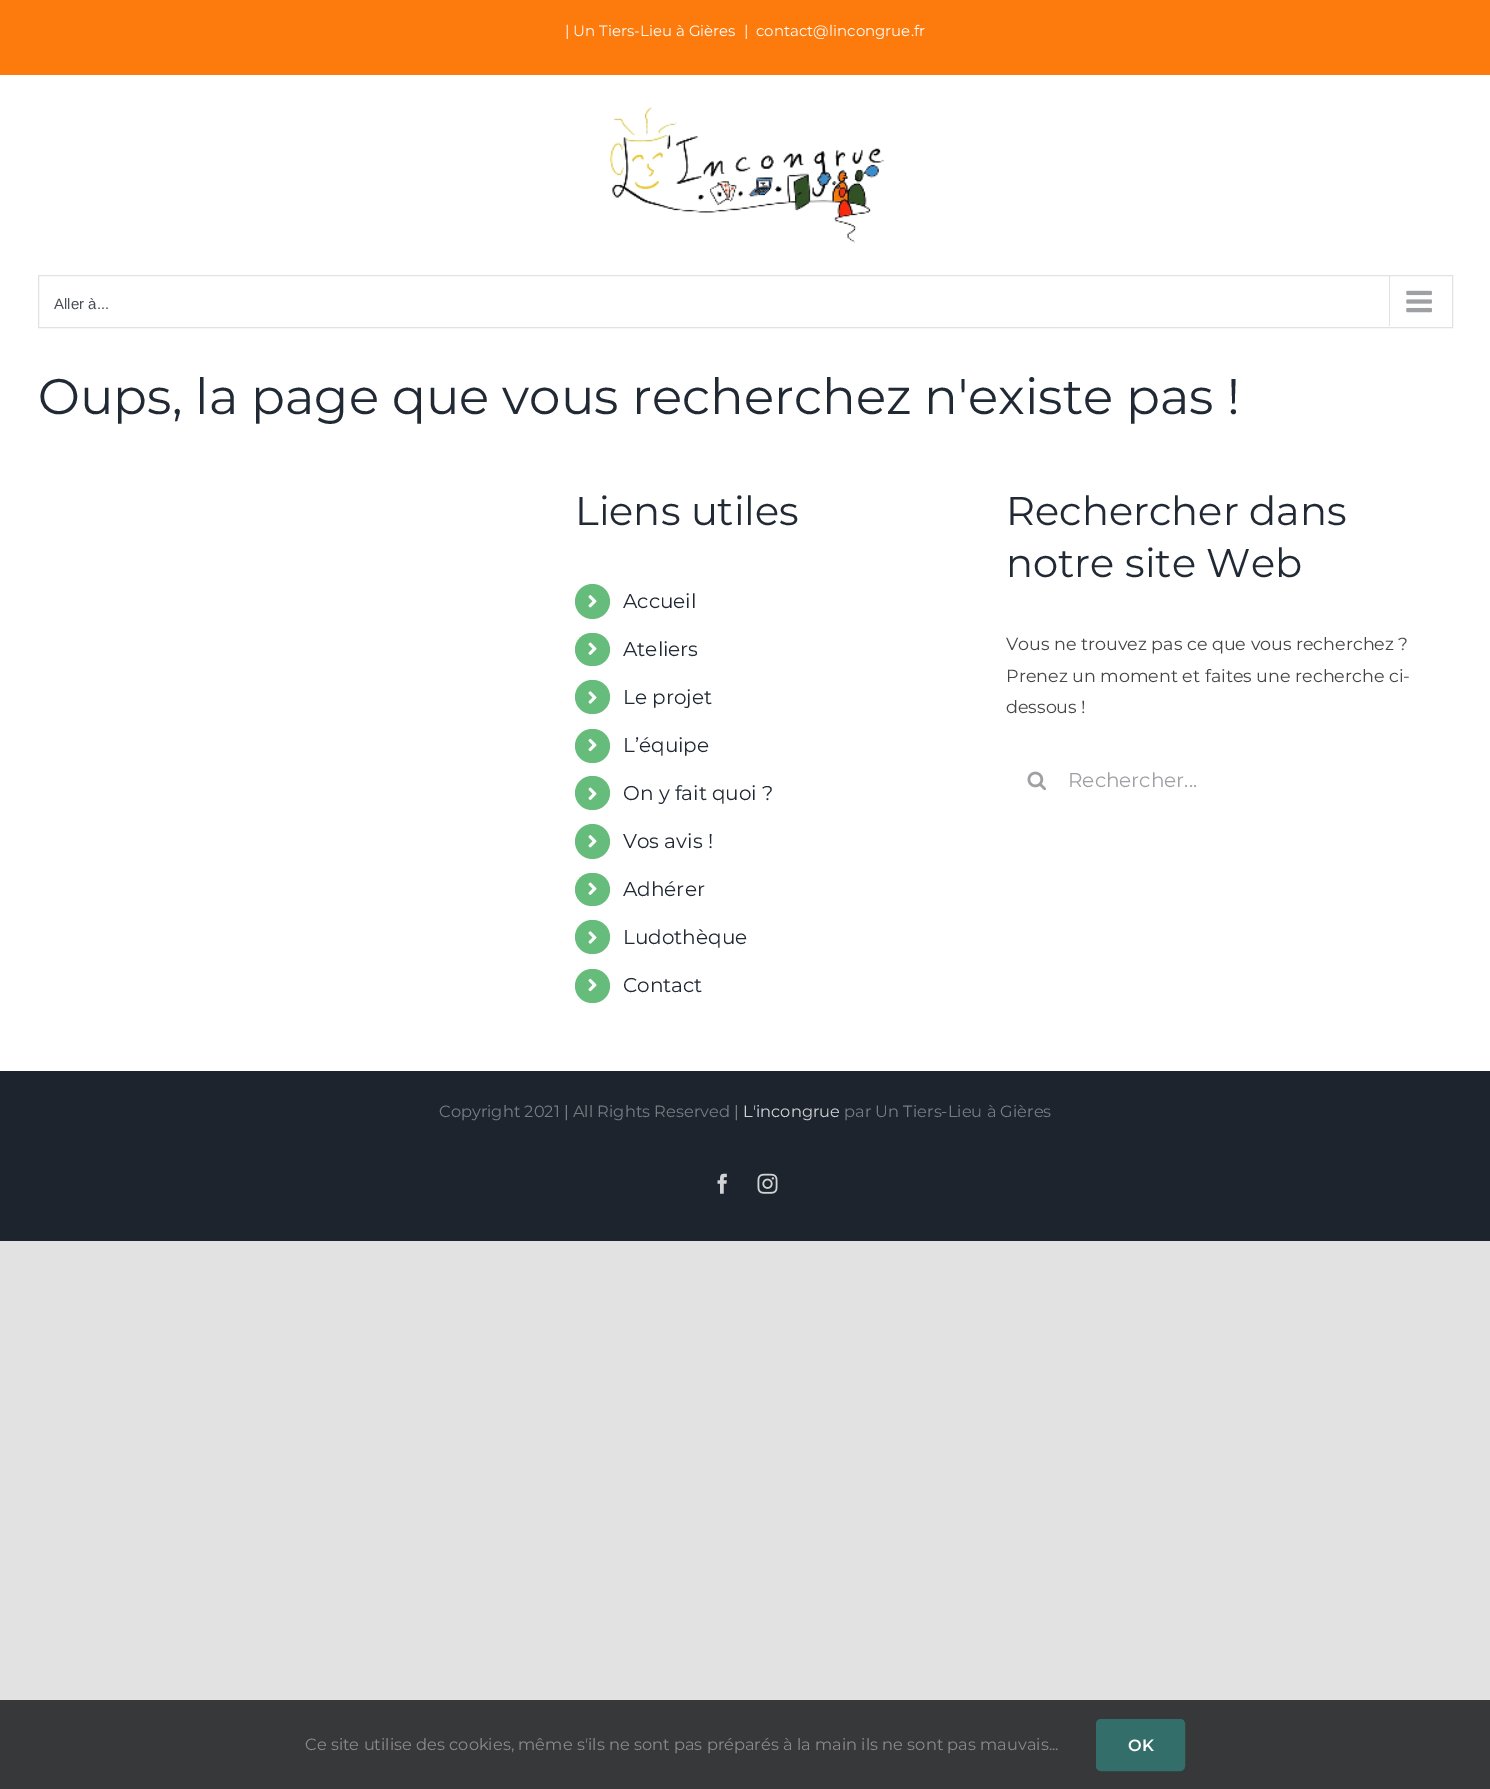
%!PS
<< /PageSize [1490 1789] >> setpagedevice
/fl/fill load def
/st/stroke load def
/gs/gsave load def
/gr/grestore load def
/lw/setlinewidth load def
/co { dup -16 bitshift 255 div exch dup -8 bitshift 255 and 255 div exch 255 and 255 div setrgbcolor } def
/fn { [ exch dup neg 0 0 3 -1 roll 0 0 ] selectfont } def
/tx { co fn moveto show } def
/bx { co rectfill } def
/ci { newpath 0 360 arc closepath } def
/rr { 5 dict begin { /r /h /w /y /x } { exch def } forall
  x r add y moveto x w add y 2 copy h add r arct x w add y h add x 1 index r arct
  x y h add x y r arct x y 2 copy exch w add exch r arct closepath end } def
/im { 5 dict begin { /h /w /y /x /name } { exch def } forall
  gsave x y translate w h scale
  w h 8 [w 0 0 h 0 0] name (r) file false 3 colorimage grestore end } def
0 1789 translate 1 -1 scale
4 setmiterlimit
0 0 1490 1789 16#E2E2E2 bx
0 75 1490 996 16#FFFFFF bx
0 0 1490 75 16#FD7B0D bx
(media/1.raw) 609 107 275 136 im
16#E2E2E2 co
38.5 275.5 1414 52 rectstroke
1389 276 1 50 16#E2E2E2 bx
(media/2.raw) 1406 290 26 23 im
16#65BC7B co
592.5 601.5 17.5 ci fl
(media/3.raw) 588 595 9 13 im
575 633 35 33 16.5 rr fl
(media/4.raw) 588 642 9 13 im
575 680 35 34 17 rr fl
(media/5.raw) 588 691 9 13 im
575 729 35 34 17 rr fl
(media/6.raw) 588 738 9 14 im
575 776 35 34 17 rr fl
(media/4.raw) 588 787 9 13 im
592.5 841.5 17.5 ci fl
(media/3.raw) 588 835 9 13 im
575 873 35 33 16.5 rr fl
(media/4.raw) 588 882 9 13 im
575 920 35 34 17 rr fl
(media/5.raw) 588 931 9 13 im
575 969 35 34 17 rr fl
(media/6.raw) 588 978 9 14 im
(media/7.raw) 1027 771 19 20 im
0 1071 1490 170 16#1D242D bx
(media/8.raw) 717 1173 10 21 im
(media/9.raw) 757 1173 21 21 im
0 1700 1490 89 16#363839 bx
16#336E6A co
1097.5 1720.5 86 49 3.5 rr gs fl gr
3 lw
st
(| Un Tiers-Lieu à Gières) 565 36 /Montserrat-Regular 15 16#FFFFFF tx
(|) 744 36 /Montserrat-Regular 15 16#FFFFFF tx
(contact@lincongrue.fr) 756 36 /Montserrat-Regular 15 16#FFFFFF tx
(Aller à...) 54 309 /LiberationSans-Regular 15 16#4A4E57 tx
(Oups, la page que vous recherchez n'existe pas !) 38 414 /Montserrat-Regular 49.9 16#212934 tx
(Liens utiles) 575 525 /Montserrat-Regular 40 16#212934 tx
(Accueil) 623 608 /Montserrat-Regular 20 16#212934 tx
(Ateliers) 623 656 /Montserrat-Regular 20 16#212934 tx
(Le projet) 623 704 /Montserrat-Regular 20 16#212934 tx
(L’équipe) 623 752 /Montserrat-Regular 20 16#212934 tx
(On y fait quoi ?) 623 800 /Montserrat-Regular 20 16#212934 tx
(Vos avis !) 623 848 /Montserrat-Regular 20 16#212934 tx
(Adhérer) 623 896 /Montserrat-Regular 20 16#212934 tx
(Ludothèque) 623 944 /Montserrat-Regular 20 16#212934 tx
(Contact) 623 992 /Montserrat-Regular 20 16#212934 tx
(Rechercher dans) 1006 525 /Montserrat-Regular 40 16#212934 tx
(notre site Web) 1006 577 /Montserrat-Regular 40 16#212934 tx
(Vous ne trouvez pas ce que vous recherchez ?) 1006 650 /Montserrat-Regular 17.5 16#454545 tx
(Prenez un moment et faites une recherche ci-) 1006 682 /Montserrat-Regular 17.5 16#454545 tx
(dessous !) 1006 713 /Montserrat-Regular 17.5 16#454545 tx
(Rechercher...) 1068 787 /Montserrat-Regular 20 16#9EA0A4 tx
(Copyright 2021 | All Rights Reserved |) 439 1117 /Montserrat-Regular 16.25 16#777C81 tx
(L'incongrue) 743 1117 /Montserrat-Regular 16.25 16#D2D3D5 tx
(par Un Tiers-Lieu à Gières) 844 1117 /Montserrat-Regular 16.25 16#777C81 tx
(Ce site utilise des cookies, même s'ils ne sont pas préparés à la main ils ne sont pas mauvais...) 305 1750 /Montserrat-Regular 16.25 16#8C8989 tx
(OK) 1128 1751 /Montserrat-SemiBold 16.25 16#FFFFFF tx
showpage
